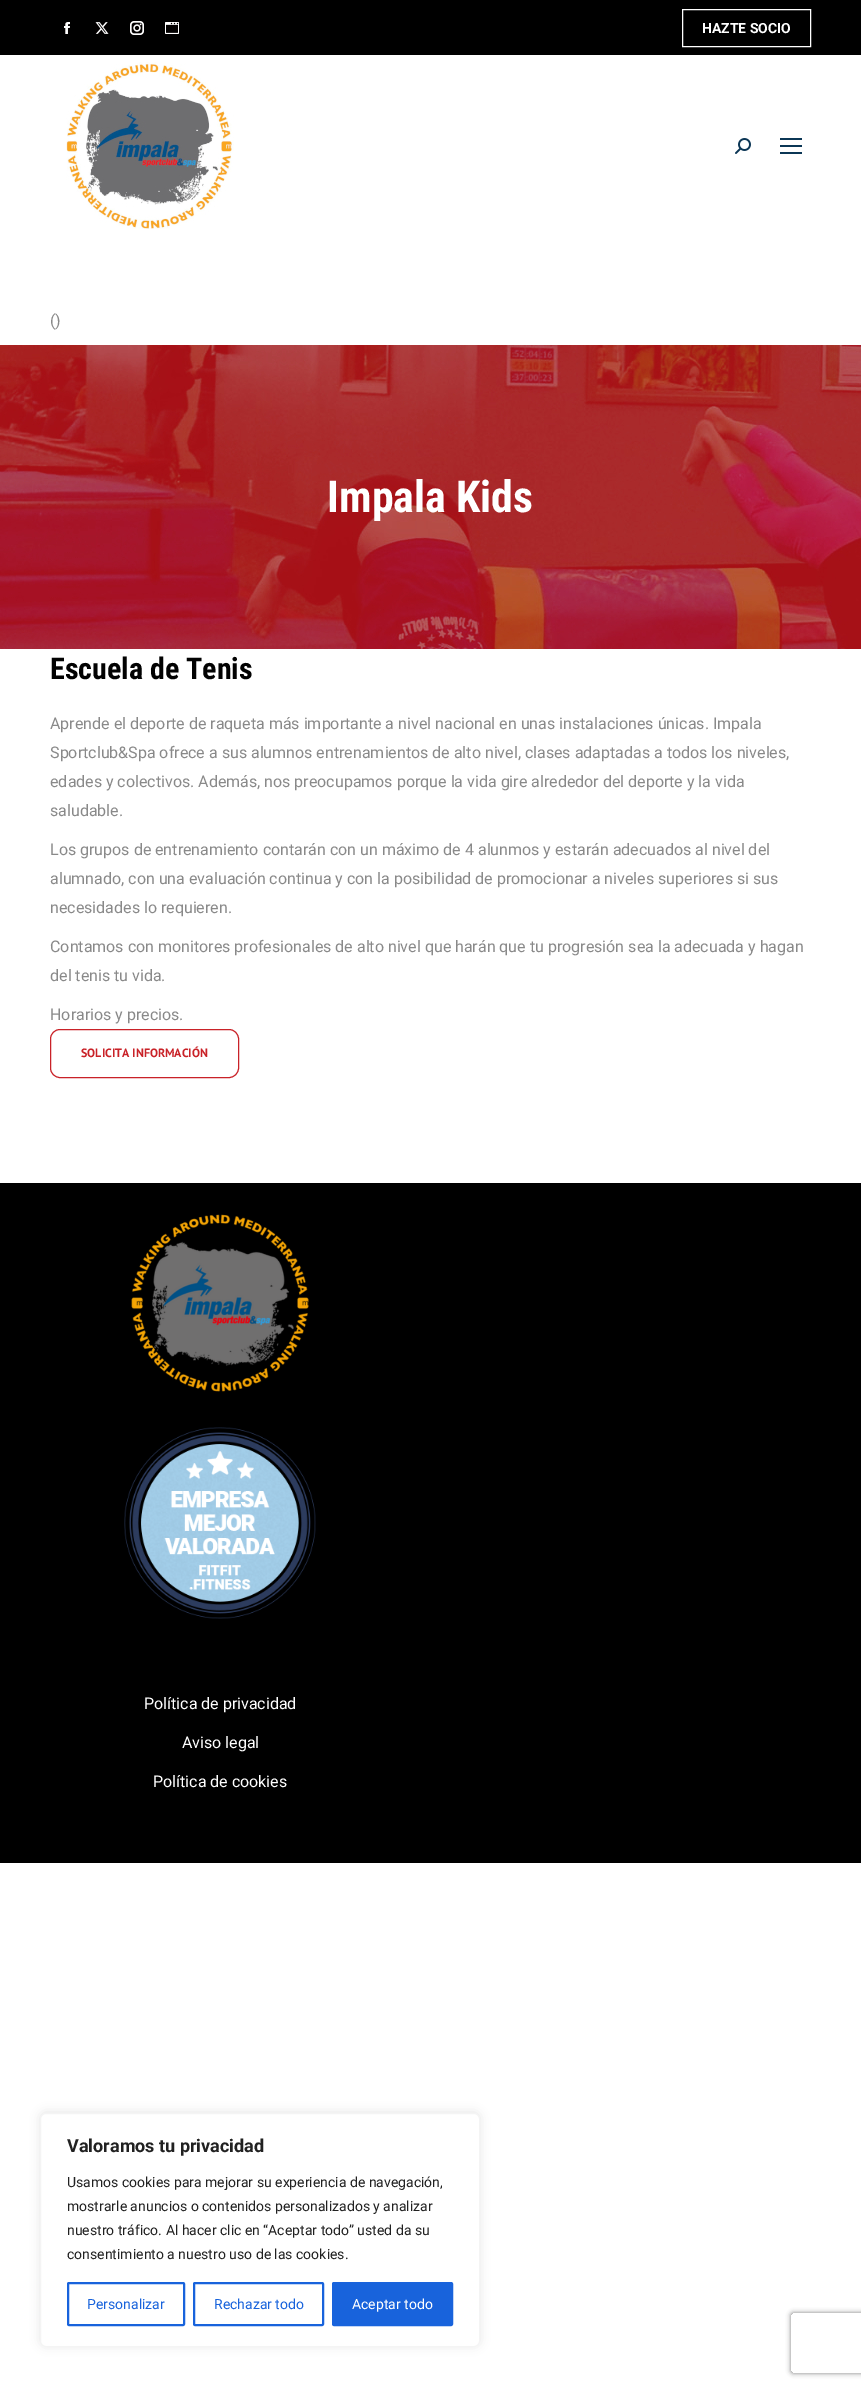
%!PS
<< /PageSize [861 2387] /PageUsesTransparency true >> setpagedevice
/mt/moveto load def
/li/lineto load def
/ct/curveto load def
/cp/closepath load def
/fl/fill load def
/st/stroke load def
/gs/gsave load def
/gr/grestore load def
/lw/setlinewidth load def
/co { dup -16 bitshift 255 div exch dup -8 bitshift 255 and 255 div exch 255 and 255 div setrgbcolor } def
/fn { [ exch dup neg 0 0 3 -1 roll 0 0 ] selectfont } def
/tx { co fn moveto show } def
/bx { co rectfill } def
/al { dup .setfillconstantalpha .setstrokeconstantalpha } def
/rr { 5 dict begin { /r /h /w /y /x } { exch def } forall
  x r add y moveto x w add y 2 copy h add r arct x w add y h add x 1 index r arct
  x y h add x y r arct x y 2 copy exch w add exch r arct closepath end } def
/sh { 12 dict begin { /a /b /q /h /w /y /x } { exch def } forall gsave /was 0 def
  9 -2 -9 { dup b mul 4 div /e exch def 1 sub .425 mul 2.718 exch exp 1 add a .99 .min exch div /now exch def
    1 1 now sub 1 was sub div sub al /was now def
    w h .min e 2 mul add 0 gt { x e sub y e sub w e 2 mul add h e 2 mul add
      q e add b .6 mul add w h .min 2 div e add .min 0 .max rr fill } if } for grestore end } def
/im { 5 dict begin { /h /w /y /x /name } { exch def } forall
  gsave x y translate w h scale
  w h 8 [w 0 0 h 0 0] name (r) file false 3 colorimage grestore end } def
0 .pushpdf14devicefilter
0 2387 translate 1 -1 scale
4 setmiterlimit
0 0 861 2387 16#FFFFFF bx
0 0 861 55 16#000000 bx
(media/1.raw) 64 22 6 12 im
(media/2.raw) 95 22 14 12 im
(media/3.raw) 130 21 14 14 im
(media/4.raw) 165 22 14 12 im
16#FFFFFF co
682.5 9.5 128 37 rectstroke
(media/5.raw) 66 62 168 167 im
(media/6.raw) 735 138 16 16 im
780 138 22 2 16#0B3655 bx
780 145 22 2 16#0B3655 bx
780 152 22 2 16#0B3655 bx
(media/7.raw) 0 345 861 304 im
16#C92228 co
50.5 1029.5 188 48 9.5 rr st
0 1183 861 680 16#000000 bx
(media/8.raw) 131 1214 178 178 im
(media/9.raw) 124 1427 192 192 im
16#ACABAB co
40 2112 440 234 6 5 .3 sh
16#FFFFFF co
40.5 2113.5 439 233 5.5 rr gs fl gr
16#F4F4F4 co
st
16#1863DC co
2 lw
68 2283 116 42 1 rr st
194 2283 129 42 1 rr st
333 2283 119 42 1 rr gs fl gr
st
gs
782 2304 mt 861 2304 li 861 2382 li 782 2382 li cp 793 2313 mt 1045 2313 li 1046 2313 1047 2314 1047 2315 ct 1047 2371 li 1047 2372 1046 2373 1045 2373 ct 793 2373 li 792 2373 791 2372 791 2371 ct 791 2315 li 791 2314 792 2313 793 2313 ct cp eoclip newpath
16#808080 co
791 2313 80 60 2 2.5 1 sh
gr
(HAZTE SOCIO) 702 33 /Roboto-Bold 14 16#FFFFFF tx
(\(\)) 50 326 /Roboto-Regular 16 16#898989 tx
(Impala Kids) 327 512 /RobotoCondensed-Bold 44 16#FFFFFF tx
(Escuela de Tenis) 50 679 /RobotoCondensed-Bold 30 16#020202 tx
(Aprende el deporte de raqueta más importante a nivel nacional en unas instalaciones únicas. Impala) 50 729 /Roboto-Regular 16 16#898989 tx
(Sportclub&Spa ofrece a sus alumnos entrenamientos de alto nivel, clases adaptadas a todos los niveles,) 50 758 /Roboto-Regular 16 16#898989 tx
(edades y colectivos. Además, nos preocupamos porque la vida gire alrededor del deporte y la vida) 50 787 /Roboto-Regular 16 16#898989 tx
(saludable.) 50 816 /Roboto-Regular 16 16#898989 tx
(Los grupos de entrenamiento contarán con un máximo de 4 alunmos y estarán adecuados al nivel del) 50 855 /Roboto-Regular 16 16#898989 tx
(alumnado, con una evaluación continua y con la posibilidad de promocionar a niveles superiores si sus) 50 884 /Roboto-Regular 16 16#898989 tx
(necesidades lo requieren.) 50 913 /Roboto-Regular 16 16#898989 tx
(Contamos con monitores profesionales de alto nivel que harán que tu progresión sea la adecuada y hagan) 50 952 /Roboto-Regular 16 16#898989 tx
(del tenis tu vida.) 50 981 /Roboto-Regular 16 16#898989 tx
(Horarios y precios.) 50 1020 /Roboto-Regular 16 16#898989 tx
(SOLICITA INFORMACIÓN) 81 1057 /PTSans-Bold 12 16#C92228 tx
(Política de privacidad) 144 1709 /Roboto-Regular 16 16#FFFFFF tx
(Aviso legal) 182 1748 /Roboto-Regular 16 16#FFFFFF tx
(Política de cookies) 153 1787 /Roboto-Regular 16 16#FFFFFF tx
(Valoramos tu privacidad) 67 2152 /Roboto-Bold 18 16#212121 tx
(Usamos cookies para mejorar su experiencia de navegación,) 67 2187 /Roboto-Regular 14 16#212121 tx
(mostrarle anuncios o contenidos personalizados y analizar) 67 2211 /Roboto-Regular 14 16#212121 tx
(nuestro tráfico. Al hacer clic en “Aceptar todo” usted da su) 67 2235 /Roboto-Regular 14 16#212121 tx
(consentimiento a nuestro uso de las cookies.) 67 2259 /Roboto-Regular 14 16#212121 tx
(Personalizar) 87 2309 /Roboto-Regular 14 16#1863DC tx
(Rechazar todo) 214 2309 /Roboto-Regular 14 16#1863DC tx
(Aceptar todo) 352 2309 /Roboto-Regular 14 16#FFFFFF tx
.poppdf14devicefilter showpage
